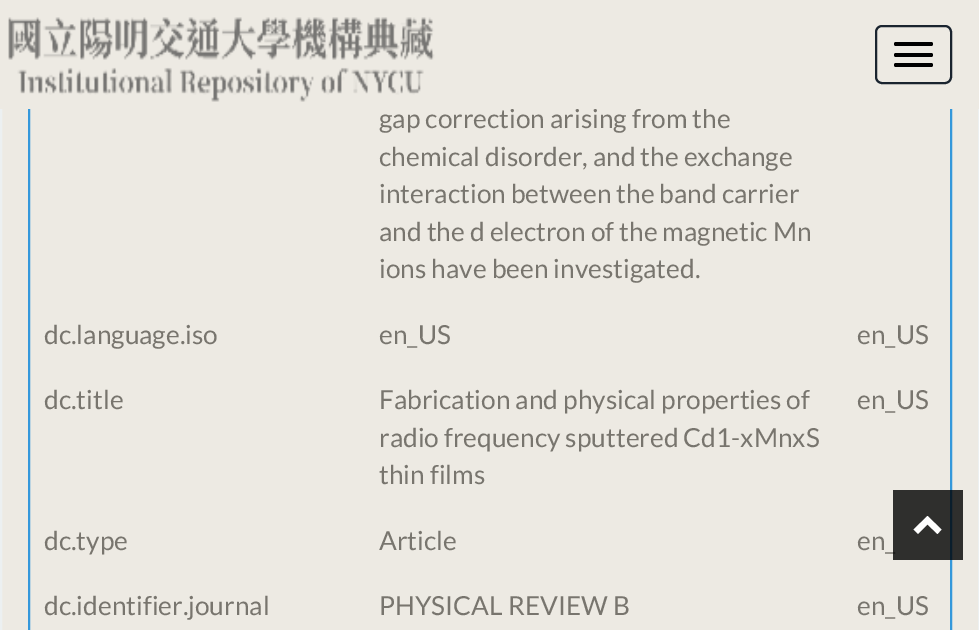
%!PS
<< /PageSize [979 630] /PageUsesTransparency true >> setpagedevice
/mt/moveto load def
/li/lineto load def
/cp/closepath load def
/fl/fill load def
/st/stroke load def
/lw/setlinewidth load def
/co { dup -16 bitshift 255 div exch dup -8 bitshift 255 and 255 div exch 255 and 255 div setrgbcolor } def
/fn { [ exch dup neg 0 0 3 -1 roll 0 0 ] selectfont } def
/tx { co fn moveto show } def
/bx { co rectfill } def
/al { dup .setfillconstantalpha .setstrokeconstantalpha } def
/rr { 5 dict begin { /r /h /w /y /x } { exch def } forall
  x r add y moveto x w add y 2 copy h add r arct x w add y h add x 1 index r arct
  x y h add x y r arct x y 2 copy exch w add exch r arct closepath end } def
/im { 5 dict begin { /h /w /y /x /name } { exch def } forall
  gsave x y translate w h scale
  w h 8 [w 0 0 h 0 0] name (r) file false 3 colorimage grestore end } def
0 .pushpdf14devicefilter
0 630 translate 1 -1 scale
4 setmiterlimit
0 0 979 630 16#EDEAE3 bx
16#ECF0F1 co
2 lw
1 -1 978 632 rectstroke
16#3498DB co
29 -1 922 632 rectstroke
(gap correction arising from the) 379 128 /Lato-Regular 26.25 16#78756E tx
0 0 979 109 16#EDEAE3 bx
16#1A242F co
876 26 75 57 6 rr st
16#000000 co
894 63 39 4 2 rr fl
894 53 39 4 2 rr fl
894 42 39 4 2 rr fl
(media/1.raw) 8 17 427 85 im
(chemical disorder, and the exchange) 379 166 /Lato-Regular 26.25 16#78756E tx
(interaction between the band carrier) 379 203 /Lato-Regular 26.25 16#78756E tx
(and the d electron of the magnetic Mn) 379 241 /Lato-Regular 26.25 16#78756E tx
(ions have been investigated.) 379 278 /Lato-Regular 26.25 16#78756E tx
(dc.language.iso) 44 344 /Lato-Regular 26.25 16#78756E tx
(en_US) 379 344 /Lato-Regular 26.25 16#78756E tx
(en_US) 857 344 /Lato-Regular 26.25 16#78756E tx
(dc.title) 44 409 /Lato-Regular 26.25 16#78756E tx
(Fabrication and physical properties of) 379 409 /Lato-Regular 26.25 16#78756E tx
(radio frequency sputtered Cd1-xMnxS) 379 447 /Lato-Regular 26.25 16#78756E tx
(thin films) 379 484 /Lato-Regular 26.25 16#78756E tx
(en_US) 857 409 /Lato-Regular 26.25 16#78756E tx
(dc.type) 44 550 /Lato-Regular 26.25 16#78756E tx
(Article) 379 550 /Lato-Regular 26.25 16#78756E tx
(en_) 857 550 /Lato-Regular 26.25 16#78756E tx
(dc.identifier.journal) 44 615 /Lato-Regular 26.25 16#78756E tx
(PHYSICAL REVIEW B) 379 615 /Lato-Regular 26.25 16#78756E tx
(en_US) 857 615 /Lato-Regular 26.25 16#78756E tx
0.8 al
893 490 70 70 16#000000 bx
1 al
16#FFFFFF co
927.5 516 mt 941.5 529.5 li 937.5 534 li 927.5 524.5 li 918 534 li 913.5 529.5 li cp fl
.poppdf14devicefilter showpage
